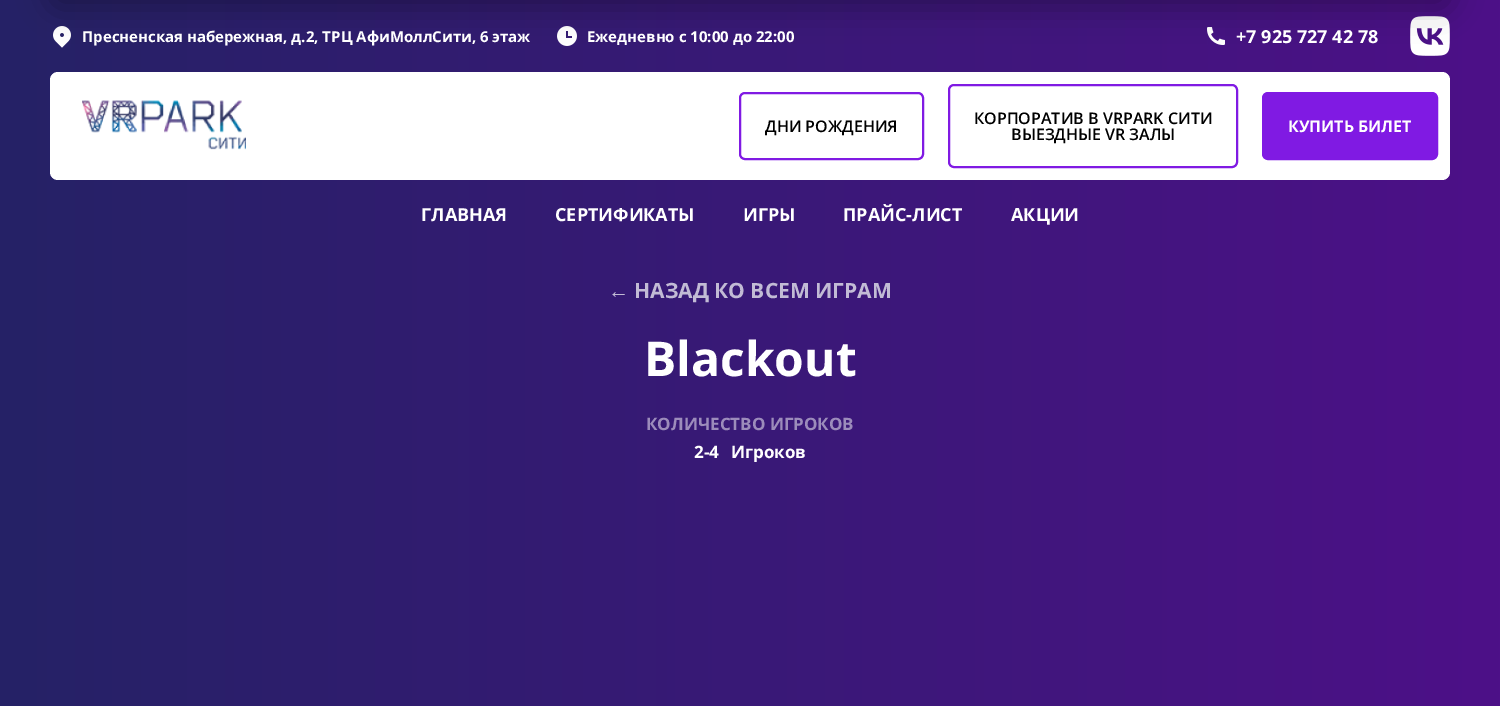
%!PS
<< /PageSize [1500 706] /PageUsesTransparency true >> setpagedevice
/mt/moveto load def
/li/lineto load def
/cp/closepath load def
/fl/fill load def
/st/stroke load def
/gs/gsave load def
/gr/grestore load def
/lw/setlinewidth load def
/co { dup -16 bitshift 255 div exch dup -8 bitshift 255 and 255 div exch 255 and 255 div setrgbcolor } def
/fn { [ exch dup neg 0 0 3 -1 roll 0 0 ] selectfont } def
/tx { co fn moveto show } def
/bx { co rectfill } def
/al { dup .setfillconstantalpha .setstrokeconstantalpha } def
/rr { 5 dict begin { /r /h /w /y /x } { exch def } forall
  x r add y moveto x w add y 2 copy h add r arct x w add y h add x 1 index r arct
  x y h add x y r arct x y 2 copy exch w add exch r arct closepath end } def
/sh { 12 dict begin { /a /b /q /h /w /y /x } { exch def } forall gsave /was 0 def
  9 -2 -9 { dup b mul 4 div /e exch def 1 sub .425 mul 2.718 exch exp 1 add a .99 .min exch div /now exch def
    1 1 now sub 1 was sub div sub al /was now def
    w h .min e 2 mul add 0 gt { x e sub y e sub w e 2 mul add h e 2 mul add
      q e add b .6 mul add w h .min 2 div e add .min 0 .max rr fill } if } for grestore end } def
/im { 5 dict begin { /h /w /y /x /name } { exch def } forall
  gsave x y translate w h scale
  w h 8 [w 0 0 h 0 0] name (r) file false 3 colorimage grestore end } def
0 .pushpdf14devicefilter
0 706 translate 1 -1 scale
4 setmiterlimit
0 0 1500 706 16#FFFFFF bx
gs 0 0 mt 1500 0 li 1500 706 li 0 706 li cp clip newpath
<< /ShadingType 2 /ColorSpace /DeviceRGB /Coords [0 353 1500 353] /Extend [true true] /Function << /FunctionType 2 /Domain [0 1] /C0 [.145 .133 .4] /C1 [.302 .063 .533] /N 1 >> >> shfill gr
(media/1.raw) 53 26 18 22 im
(media/2.raw) 557 26 20 20 im
(media/3.raw) 1207 27 18 18 im
(media/4.raw) 1410 16 40 40 im
16#000000 co
50 -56 1400 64 8 16 .3 sh
16#FFFFFF co
50 72 1400 108 8 rr fl
(media/5.raw) 82 100 164 50 im
16#801AE3 co
2 lw
740 93 183 66 5 rr st
949 85 288 82 5 rr st
1263 93 174 66 5 rr gs fl gr
st
(Пресненская набережная, д.2, ТРЦ АфиМоллСити, 6 этаж) 82 42 /OpenSans-Bold 15 16#FFFFFF tx
(Ежедневно с 10:00 до 22:00) 587 42 /OpenSans-Bold 15 16#FFFFFF tx
(+7 925 727 42 78) 1236 43 /OpenSans-Bold 18 16#FFFFFF tx
(ДНИ РОЖДЕНИЯ) 765 132 /OpenSans-SemiBold 16 16#000000 tx
(КОРПОРАТИВ В VRPARK СИТИ) 974 124 /OpenSans-SemiBold 16 16#000000 tx
(ВЫЕЗДНЫЕ VR ЗАЛЫ) 1011 140 /OpenSans-SemiBold 16 16#000000 tx
(КУПИТЬ БИЛЕТ) 1288 132 /OpenSans-Bold 16 16#FFFFFF tx
(ГЛАВНАЯ) 421 221 /OpenSans-Bold 18 16#FFFFFF tx
(СЕРТИФИКАТЫ) 555 221 /OpenSans-Bold 18 16#FFFFFF tx
(ИГРЫ) 743 221 /OpenSans-Bold 18 16#FFFFFF tx
(ПРАЙС-ЛИСТ) 843 221 /OpenSans-Bold 18 16#FFFFFF tx
(АКЦИИ) 1011 221 /OpenSans-Bold 18 16#FFFFFF tx
(←) 608 298 /LiberationSans-Bold 21 16#C2BBD5 tx
(НАЗАД КО ВСЕМ ИГРАМ) 634 298 /OpenSans-Bold 21 16#C2BBD5 tx
(Blackout) 644 376 /OpenSans-Bold 48 16#FFFFFF tx
(КОЛИЧЕСТВО ИГРОКОВ) 646 430 /OpenSans-Bold 17 16#9C8CBB tx
(2-4) 694 458 /OpenSans-Bold 17 16#FFFFFF tx
(Игроков) 731 458 /OpenSans-Bold 17 16#FFFFFF tx
.poppdf14devicefilter showpage
